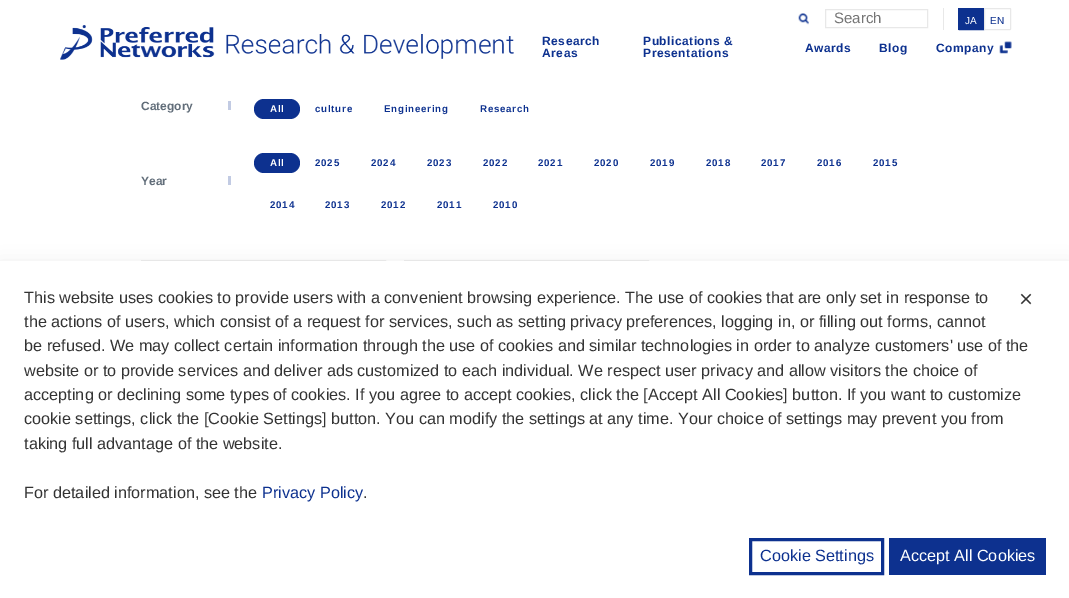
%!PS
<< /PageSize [1069 598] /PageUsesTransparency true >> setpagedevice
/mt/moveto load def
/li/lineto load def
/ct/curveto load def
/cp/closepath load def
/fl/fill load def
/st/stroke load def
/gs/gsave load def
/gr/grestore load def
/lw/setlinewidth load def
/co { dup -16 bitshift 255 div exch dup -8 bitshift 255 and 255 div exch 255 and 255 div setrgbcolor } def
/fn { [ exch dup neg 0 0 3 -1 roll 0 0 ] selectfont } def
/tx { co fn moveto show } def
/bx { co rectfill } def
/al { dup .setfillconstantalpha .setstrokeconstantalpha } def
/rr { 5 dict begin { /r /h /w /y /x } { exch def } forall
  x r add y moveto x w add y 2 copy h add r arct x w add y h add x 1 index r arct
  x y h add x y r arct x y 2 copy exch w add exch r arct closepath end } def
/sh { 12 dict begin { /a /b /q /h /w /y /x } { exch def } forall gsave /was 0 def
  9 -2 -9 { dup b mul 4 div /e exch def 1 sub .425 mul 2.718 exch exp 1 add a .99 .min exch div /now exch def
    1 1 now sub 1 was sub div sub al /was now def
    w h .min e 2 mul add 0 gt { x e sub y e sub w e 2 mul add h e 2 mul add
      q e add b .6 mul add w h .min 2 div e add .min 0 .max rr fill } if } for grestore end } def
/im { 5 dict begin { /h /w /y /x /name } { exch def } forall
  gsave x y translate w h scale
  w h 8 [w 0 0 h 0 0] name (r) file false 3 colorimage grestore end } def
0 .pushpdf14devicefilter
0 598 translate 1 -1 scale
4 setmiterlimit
0 0 1069 598 16#FFFFFF bx
(media/1.raw) 798 13 11 12 im
16#E8E8E8 co
825.5 9.5 102 18 rectstroke
943 8 1 22 16#E8E8E8 bx
16#0D318F co
959 8.5 mt 983.5 8.5 li 983.5 29.5 li 959 29.5 li 958.5 29.5 958.5 29.5 958.5 29 ct 958.5 9 li 958.5 8.5 958.5 8.5 959 8.5 ct cp gs fl gr
st
16#E8E8E8 co
984.5 8.5 mt 1010 8.5 li 1010.5 8.5 1010.5 8.5 1010.5 9 ct 1010.5 29 li 1010.5 29.5 1010.5 29.5 1010 29.5 ct 984.5 29.5 li cp st
(media/2.raw) 60 25 454 35 im
(media/3.raw) 999 41 13 13 im
228 101 3 9 16#C2CBE3 bx
16#0D318F co
254 99 46 20 10 rr fl
228 176 3 9 16#C2CBE3 bx
16#0D318F co
254 153 46 20 10 rr fl
16#EFEFEF co
141.5 260.5 244 142 rectstroke
404.5 260.5 244 142 rectstroke
16#000000 co
0 266 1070 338 0 9.5 .1 sh
0 261 1069 337 16#FFFFFF bx
16#0D318F co
3 lw
750.5 539.5 132 34 rectstroke
889 538 157 37 16#0D318F bx
(Search) 834 23 /LiberationSans-Regular 15 16#757575 tx
(JA) 965 24 /LiberationSans-Regular 10 16#FFFFFF tx
(EN) 990 24 /LiberationSans-Regular 10 16#0D318F tx
/LiberationSans-Bold 12 fn
542 45 mt .5 0 (Research) ashow
542 57 mt .5 0 (Areas) ashow
643 45 mt .5 0 (Publications &) ashow
643 57 mt .5 0 (Presentations) ashow
805 52 mt .5 0 (Awards) ashow
879 52 mt .5 0 (Blog) ashow
936 52 mt .5 0 (Company) ashow
(Category) 141 110 /LiberationSans-Bold 12 16#616D79 tx
/LiberationSans-Bold 9.75 fn
16#FFFFFF co
270 112 mt .75 0 (All) ashow
16#0D318F co
315 112 mt .75 0 (culture) ashow
384 112 mt .75 0 (Engineering) ashow
480 112 mt .75 0 (Research) ashow
(Year) 141 185 /LiberationSans-Bold 12 16#616D79 tx
/LiberationSans-Bold 9.75 fn
16#FFFFFF co
270 166 mt .75 0 (All) ashow
16#0D318F co
315 166 mt .75 0 (2025) ashow
371 166 mt .75 0 (2024) ashow
427 166 mt .75 0 (2023) ashow
483 166 mt .75 0 (2022) ashow
538 166 mt .75 0 (2021) ashow
594 166 mt .75 0 (2020) ashow
650 166 mt .75 0 (2019) ashow
706 166 mt .75 0 (2018) ashow
761 166 mt .75 0 (2017) ashow
817 166 mt .75 0 (2016) ashow
873 166 mt .75 0 (2015) ashow
270 208 mt .75 0 (2014) ashow
325 208 mt .75 0 (2013) ashow
381 208 mt .75 0 (2012) ashow
437 208 mt .75 0 (2011) ashow
493 208 mt .75 0 (2010) ashow
(This website uses cookies to provide users with a convenient browsing experience. The use of cookies that are only set in response to) 24 303 /LiberationSans-Regular 16.25 16#333333 tx
(the actions of users, which consist of a request for services, such as setting privacy preferences, logging in, or filling out forms, cannot) 24 327 /LiberationSans-Regular 16.25 16#333333 tx
(be refused. We may collect certain information through the use of cookies and similar technologies in order to analyze customers' use of the) 24 351 /LiberationSans-Regular 16.25 16#333333 tx
(website or to provide services and deliver ads customized to each individual. We respect user privacy and allow visitors the choice of) 24 376 /LiberationSans-Regular 16.25 16#333333 tx
(accepting or declining some types of cookies. If you agree to accept cookies, click the [Accept All Cookies] button. If you want to customize) 24 400 /LiberationSans-Regular 16.25 16#333333 tx
(cookie settings, click the [Cookie Settings] button. You can modify the settings at any time. Your choice of settings may prevent you from) 24 424 /LiberationSans-Regular 16.25 16#333333 tx
(taking full advantage of the website.) 24 449 /LiberationSans-Regular 16.25 16#333333 tx
(For detailed information, see the) 24 498 /LiberationSans-Regular 16.25 16#333333 tx
(Privacy Policy) 262 498 /LiberationSans-Regular 16.25 16#0D318F tx
(.) 363 498 /LiberationSans-Regular 16.25 16#333333 tx
(×) 1019 307 /LiberationSans-Regular 24 16#333333 tx
(Cookie Settings) 760 561 /LiberationSans-Regular 16.25 16#0D318F tx
(Accept All Cookies) 900 561 /LiberationSans-Regular 16.25 16#FFFFFF tx
.poppdf14devicefilter showpage
